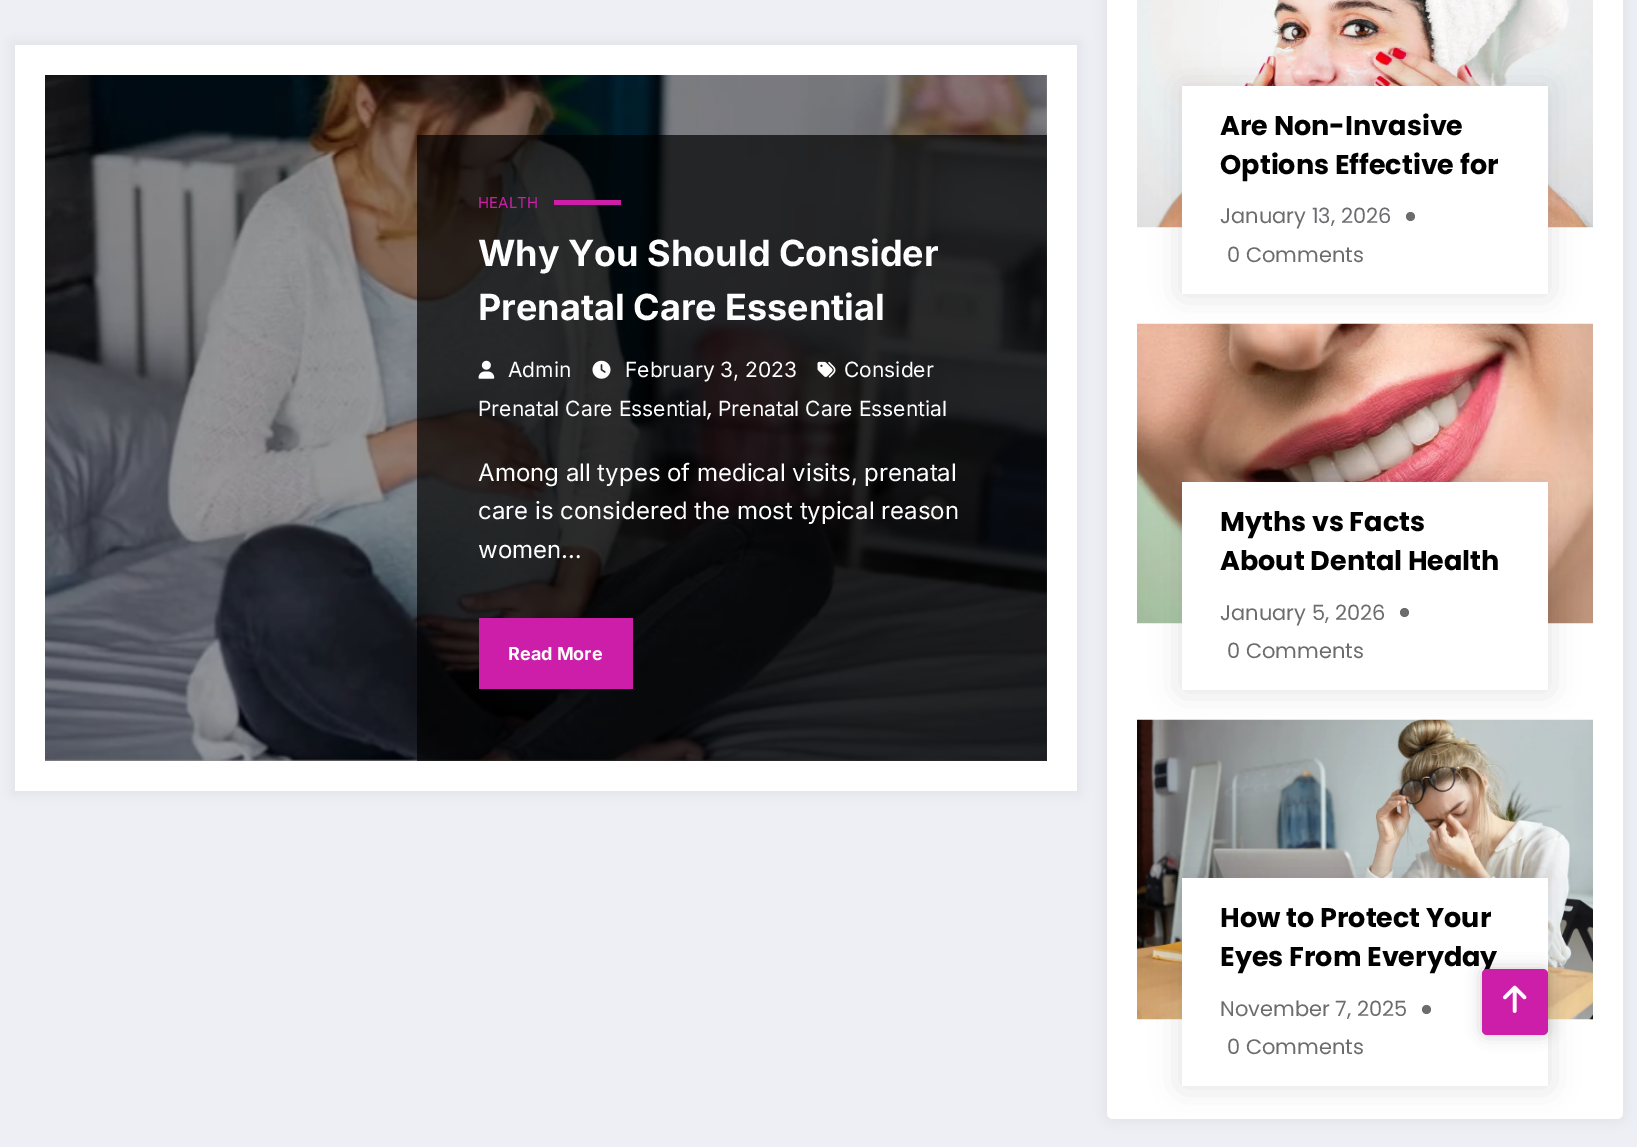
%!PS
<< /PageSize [1637 1147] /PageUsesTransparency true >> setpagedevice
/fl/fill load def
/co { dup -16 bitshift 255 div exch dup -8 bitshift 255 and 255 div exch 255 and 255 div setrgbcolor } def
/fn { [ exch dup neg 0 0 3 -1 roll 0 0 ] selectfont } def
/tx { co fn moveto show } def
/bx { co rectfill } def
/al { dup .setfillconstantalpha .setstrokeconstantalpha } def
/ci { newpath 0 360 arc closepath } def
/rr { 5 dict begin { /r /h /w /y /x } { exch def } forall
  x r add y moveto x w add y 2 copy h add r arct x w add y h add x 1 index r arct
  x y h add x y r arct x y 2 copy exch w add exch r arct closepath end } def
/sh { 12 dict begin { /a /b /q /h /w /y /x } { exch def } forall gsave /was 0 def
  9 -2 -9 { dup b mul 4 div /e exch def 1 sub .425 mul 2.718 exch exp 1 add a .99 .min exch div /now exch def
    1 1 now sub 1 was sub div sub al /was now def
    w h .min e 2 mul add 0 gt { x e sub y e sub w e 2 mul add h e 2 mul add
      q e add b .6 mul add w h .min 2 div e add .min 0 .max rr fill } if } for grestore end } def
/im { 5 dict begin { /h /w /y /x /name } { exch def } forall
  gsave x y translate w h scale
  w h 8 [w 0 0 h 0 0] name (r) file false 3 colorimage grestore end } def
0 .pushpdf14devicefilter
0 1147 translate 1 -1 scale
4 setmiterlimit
0 0 1637 1147 16#EEEEF5 bx
16#171723 co
12 42 1068 752 0 6 .05 sh
15 45 1062 746 16#FFFFFF bx
45 75 1002 686 16#999999 bx
(media/1.raw) 45 75 1002 686 im
0.7 al
417 135 630 626 16#000000 bx
1 al
554 200 67 5 16#CD1EA9 bx
(media/2.raw) 817 361 19 17 im
(media/3.raw) 478 360 17 19 im
(media/4.raw) 592 360 19 19 im
479 618 154 71 16#CD1EA9 bx
16#171723 co
1104 -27 522 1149 9 6 .05 sh
16#FFFFFF co
1107 -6 516 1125 6 rr fl
(media/5.raw) 1137 0 456 228 im
(media/6.raw) 1137 323 456 301 im
16#0F0F22 co
1182 86 366 208 0 15 .12 sh
1182 86 366 208 16#FFFFFF bx
16#6C6C6F co
1410.5 216.5 4.5 ci fl
(media/7.raw) 1137 719 456 301 im
16#0F0F22 co
1182 482 366 208 0 15 .12 sh
1182 482 366 208 16#FFFFFF bx
16#6C6C6F co
1404.5 612.5 4.5 ci fl
16#0F0F22 co
1182 878 366 208 0 15 .12 sh
1182 878 366 208 16#FFFFFF bx
16#6C6C6F co
1426.5 1009.5 4.5 ci fl
16#000000 co
1482 969 66 66 5 7.5 .2 sh
(HEALTH) 478 208 /Inter-Regular 15 16#CD1EA9 tx
(Why You Should Consider) 478 266 /Inter-Bold 36 16#FEFEFE tx
(Prenatal Care Essential) 478 320 /Inter-Bold 36 16#FEFEFE tx
(Consider) 844 377 /Inter-Regular 21 16#FEFEFE tx
(Prenatal Care Essential) 478 416 /Inter-Regular 21 16#FEFEFE tx
(,) 707 416 /Poppins-Regular 24 16#FEFEFE tx
(Prenatal Care Essential) 718 416 /Inter-Regular 21 16#FEFEFE tx
(Admin) 508 377 /Inter-Regular 21 16#FEFEFE tx
(February 3, 2023) 625 377 /Inter-Regular 21 16#FEFEFE tx
(Among all types of medical visits, prenatal) 478 481 /Inter-Regular 24 16#FEFEFE tx
(care is considered the most typical reason) 478 519 /Inter-Regular 24 16#FEFEFE tx
(women…) 478 558 /Inter-Regular 24 16#FEFEFE tx
(Read More) 508 660 /Inter-Bold 18 16#FEFEFE tx
(Are Non-Invasive) 1220 135 /Poppins-Bold 27 16#000000 tx
(Options Effective for) 1220 174 /Poppins-Bold 27 16#000000 tx
(January 13, 2026) 1220 223 /Poppins-Regular 21 16#6C6C6F tx
(0 Comments) 1227 262 /Poppins-Regular 21 16#6C6C6F tx
(Myths vs Facts) 1220 531 /Poppins-Bold 27 16#000000 tx
(About Dental Health) 1220 570 /Poppins-Bold 27 16#000000 tx
(January 5, 2026) 1220 620 /Poppins-Regular 21 16#6C6C6F tx
(0 Comments) 1227 658 /Poppins-Regular 21 16#6C6C6F tx
(How to Protect Your) 1220 927 /Poppins-Bold 27 16#000000 tx
(Eyes From Everyday) 1220 966 /Poppins-Bold 27 16#000000 tx
(November 7, 2025) 1220 1016 /Poppins-Regular 21 16#6C6C6F tx
(0 Comments) 1227 1054 /Poppins-Regular 21 16#6C6C6F tx
16#CD1EA9 co
1482 969 66 66 5 rr fl
(media/8.raw) 1503 985 24 28 im
.poppdf14devicefilter showpage
